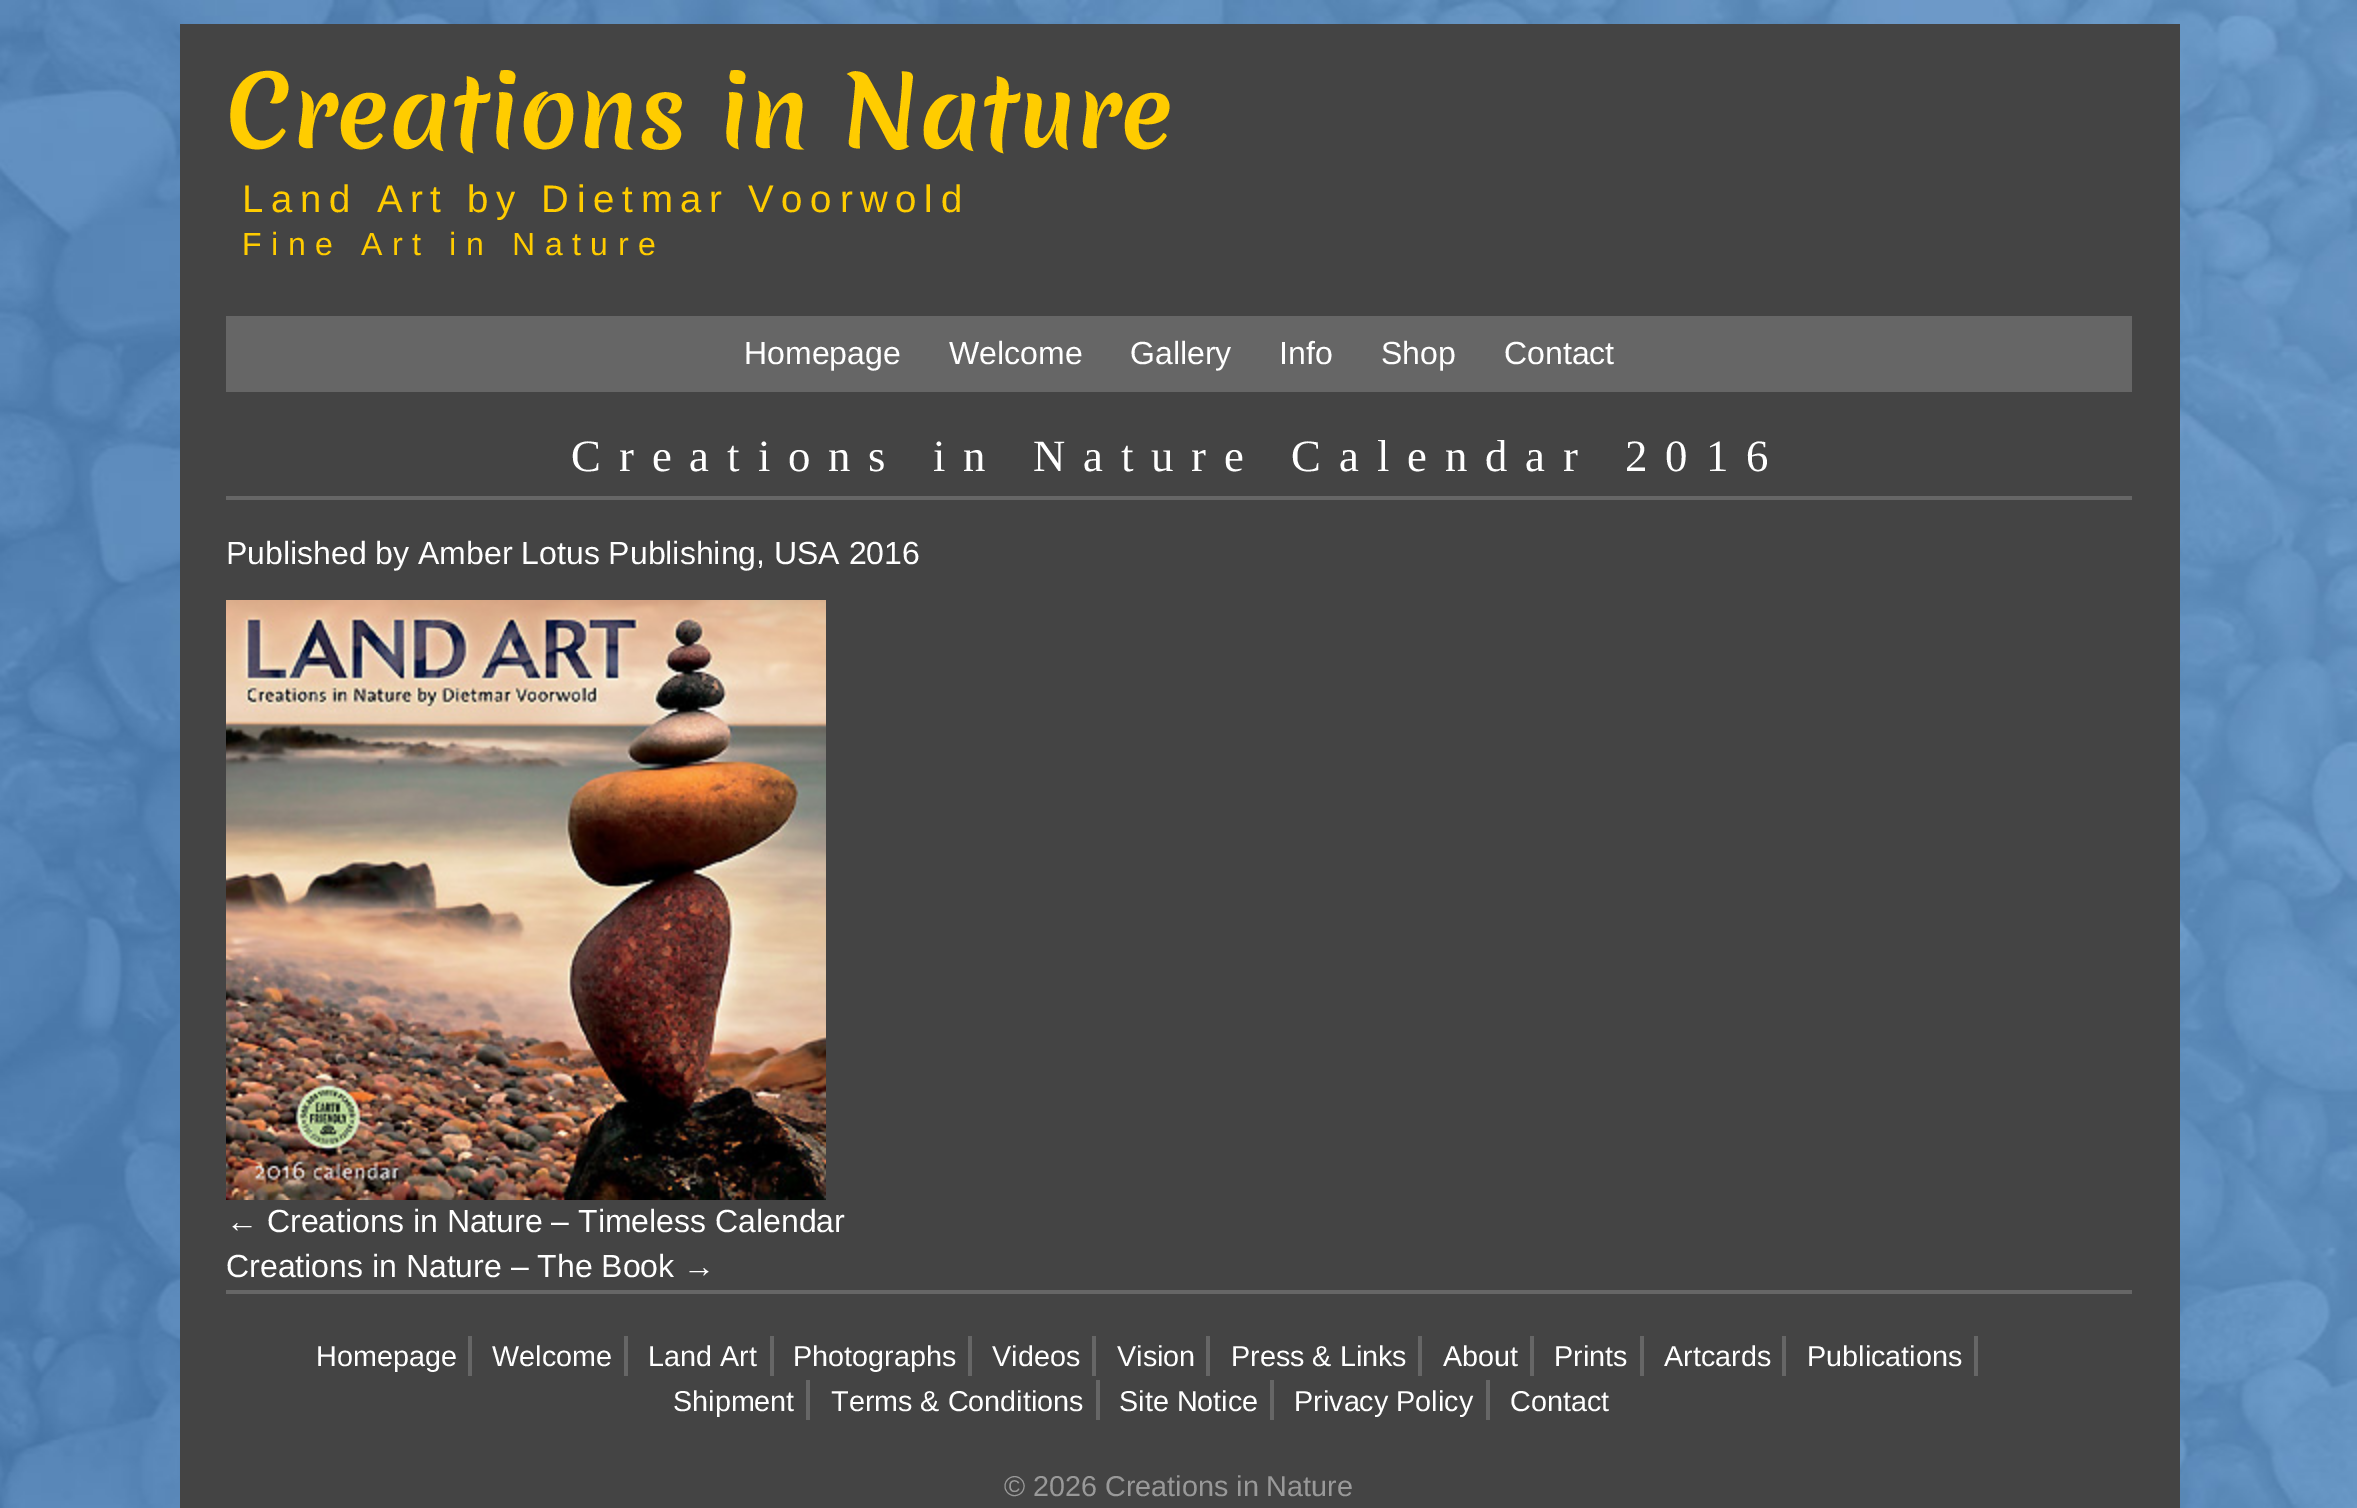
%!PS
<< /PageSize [2357 1508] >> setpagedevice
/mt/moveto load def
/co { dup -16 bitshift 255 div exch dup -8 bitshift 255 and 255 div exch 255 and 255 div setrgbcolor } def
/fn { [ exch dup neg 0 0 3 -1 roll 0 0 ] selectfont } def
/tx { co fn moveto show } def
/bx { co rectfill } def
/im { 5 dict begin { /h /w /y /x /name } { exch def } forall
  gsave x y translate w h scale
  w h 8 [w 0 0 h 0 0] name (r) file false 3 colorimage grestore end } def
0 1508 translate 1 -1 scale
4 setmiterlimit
0 0 2357 1508 16#FFFFFF bx
(media/1.raw) 0 0 2357 1508 im
180 24 2000 1484 16#444444 bx
226 316 1906 76 16#666666 bx
226 496 1906 4 16#666666 bx
(media/2.raw) 226 600 600 600 im
226 1290 1906 4 16#666666 bx
468 1336 4 40 16#666666 bx
624 1336 4 40 16#666666 bx
770 1336 4 40 16#666666 bx
968 1336 4 40 16#666666 bx
1092 1336 4 40 16#666666 bx
1206 1336 4 40 16#666666 bx
1418 1336 4 40 16#666666 bx
1530 1336 4 40 16#666666 bx
1640 1336 4 40 16#666666 bx
1782 1336 4 40 16#666666 bx
1974 1336 4 40 16#666666 bx
806 1380 4 40 16#666666 bx
1096 1380 4 40 16#666666 bx
1270 1380 4 40 16#666666 bx
1486 1380 4 40 16#666666 bx
(Creations in Nature) 226 148 /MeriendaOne-Regular 96 16#FFCC00 tx
/LiberationSans-Regular 38.4 fn
242 212 mt 7.7 0 (Land Art by Dietmar Voorwold) ashow
/LiberationSans-Regular 32 fn
242 255 mt 9.6 0 (Fine Art in Nature) ashow
(Homepage) 744 364 /LiberationSans-Regular 32 16#FFFFFF tx
(Welcome) 949 364 /LiberationSans-Regular 32 16#FFFFFF tx
(Gallery) 1130 364 /LiberationSans-Regular 32 16#FFFFFF tx
(Info) 1279 364 /LiberationSans-Regular 32 16#FFFFFF tx
(Shop) 1381 364 /LiberationSans-Regular 32 16#FFFFFF tx
(Contact) 1504 364 /LiberationSans-Regular 32 16#FFFFFF tx
/LiberationSerif-Regular 44.8 fn
571 471 mt 17.9 0 (Creations in Nature Calendar 2016) ashow
(Published by Amber Lotus Publishing, USA 2016) 226 564 /LiberationSans-Regular 32 16#FFFFFF tx
(← Creations in Nature – Timeless Calendar) 226 1232 /LiberationSans-Regular 32 16#FFFFFF tx
(Creations in Nature – The Book →) 226 1277 /LiberationSans-Regular 32 16#FFFFFF tx
(Homepage) 316 1366 /LiberationSans-Regular 28.75 16#FFFFFF tx
(Welcome) 492 1366 /LiberationSans-Regular 28.75 16#FFFFFF tx
(Land Art) 648 1366 /LiberationSans-Regular 28.75 16#FFFFFF tx
(Photographs) 793 1366 /LiberationSans-Regular 28.75 16#FFFFFF tx
(Videos) 992 1366 /LiberationSans-Regular 28.75 16#FFFFFF tx
(Vision) 1117 1366 /LiberationSans-Regular 28.75 16#FFFFFF tx
(Press & Links) 1231 1366 /LiberationSans-Regular 28.75 16#FFFFFF tx
(About) 1443 1366 /LiberationSans-Regular 28.75 16#FFFFFF tx
(Prints) 1554 1366 /LiberationSans-Regular 28.75 16#FFFFFF tx
(Artcards) 1664 1366 /LiberationSans-Regular 28.75 16#FFFFFF tx
(Publications) 1807 1366 /LiberationSans-Regular 28.75 16#FFFFFF tx
(Shipment) 673 1411 /LiberationSans-Regular 28.75 16#FFFFFF tx
(Terms & Conditions) 831 1411 /LiberationSans-Regular 28.75 16#FFFFFF tx
(Site Notice) 1119 1411 /LiberationSans-Regular 28.75 16#FFFFFF tx
(Privacy Policy) 1294 1411 /LiberationSans-Regular 28.75 16#FFFFFF tx
(Contact) 1510 1411 /LiberationSans-Regular 28.75 16#FFFFFF tx
(© 2026 Creations in Nature) 1004 1496 /LiberationSans-Regular 28.75 16#999999 tx
showpage
